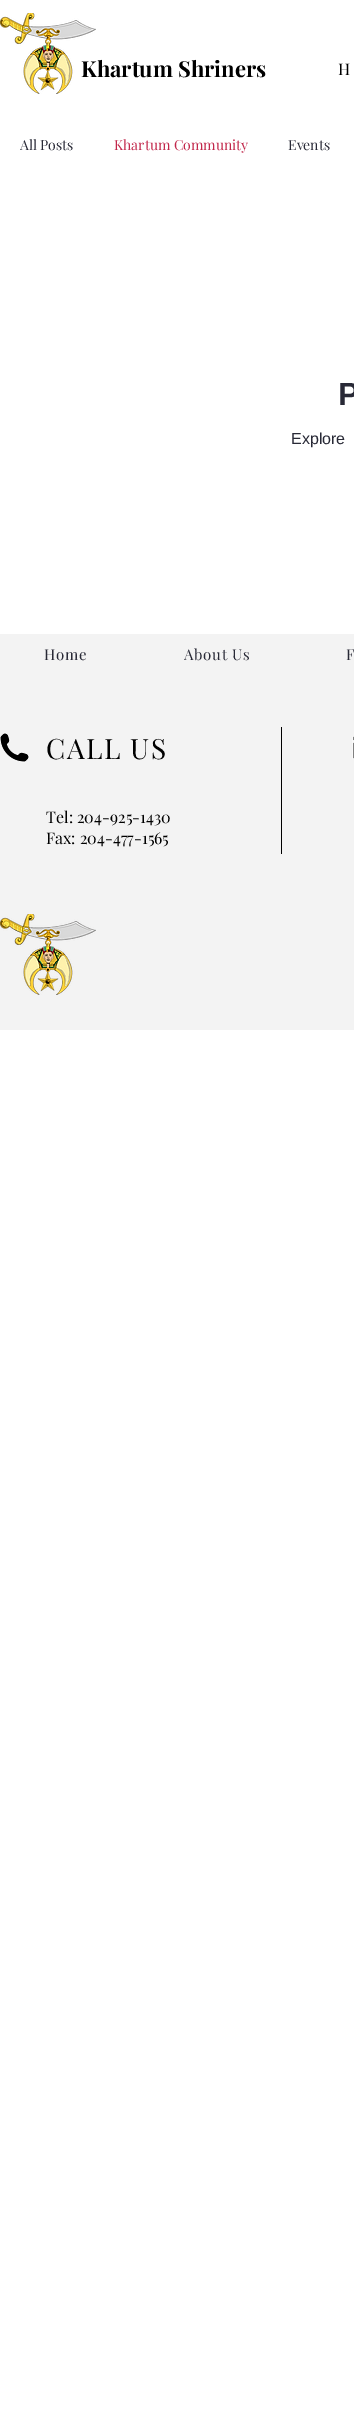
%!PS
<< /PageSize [354 2428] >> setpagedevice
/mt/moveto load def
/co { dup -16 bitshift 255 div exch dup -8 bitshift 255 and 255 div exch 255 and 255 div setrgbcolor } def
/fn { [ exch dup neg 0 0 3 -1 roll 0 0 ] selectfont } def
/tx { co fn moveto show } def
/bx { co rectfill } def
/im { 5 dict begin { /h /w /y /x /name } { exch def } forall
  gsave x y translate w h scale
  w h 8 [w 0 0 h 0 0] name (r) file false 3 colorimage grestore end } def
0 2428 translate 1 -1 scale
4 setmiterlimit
0 0 354 2428 16#FFFFFF bx
(media/1.raw) 0 13 96 81 im
0 634 354 396 16#F3F3F3 bx
(media/2.raw) 0 732 30 31 im
281 727 1 127 16#000000 bx
(media/3.raw) 352 736 2 23 im
(media/4.raw) 0 914 96 81 im
(Khartum Shriners) 81 77 /PlayfairDisplay-Bold 22 16#000000 tx
(H) 338 75 /PlayfairDisplay-Regular 16 16#000000 tx
(All Posts) 20 150 /PlayfairDisplay-Regular 14 16#282936 tx
(Khartum Community) 114 150 /PlayfairDisplay-Regular 14 16#C2274B tx
(Events) 288 150 /PlayfairDisplay-Regular 14 16#282936 tx
(P) 338 405 /LiberationSans-Bold 32 16#282936 tx
(Explore) 291 444 /LiberationSans-Regular 16 16#282936 tx
/PlayfairDisplay-Regular 15 fn
44 660 mt .75 0 (Home) ashow
184 660 mt .75 0 (About Us) ashow
346 660 mt .75 0 (F) ashow
/PlayfairDisplay-Regular 28 fn
16#000000 co
46 759 mt 1.5 0 (CALL US) ashow
(Tel: 204-925-1430) 46 823 /PlayfairDisplay-Regular 16 16#000000 tx
(Fax: 204-477-1565) 46 844 /PlayfairDisplay-Regular 16 16#000000 tx
showpage
